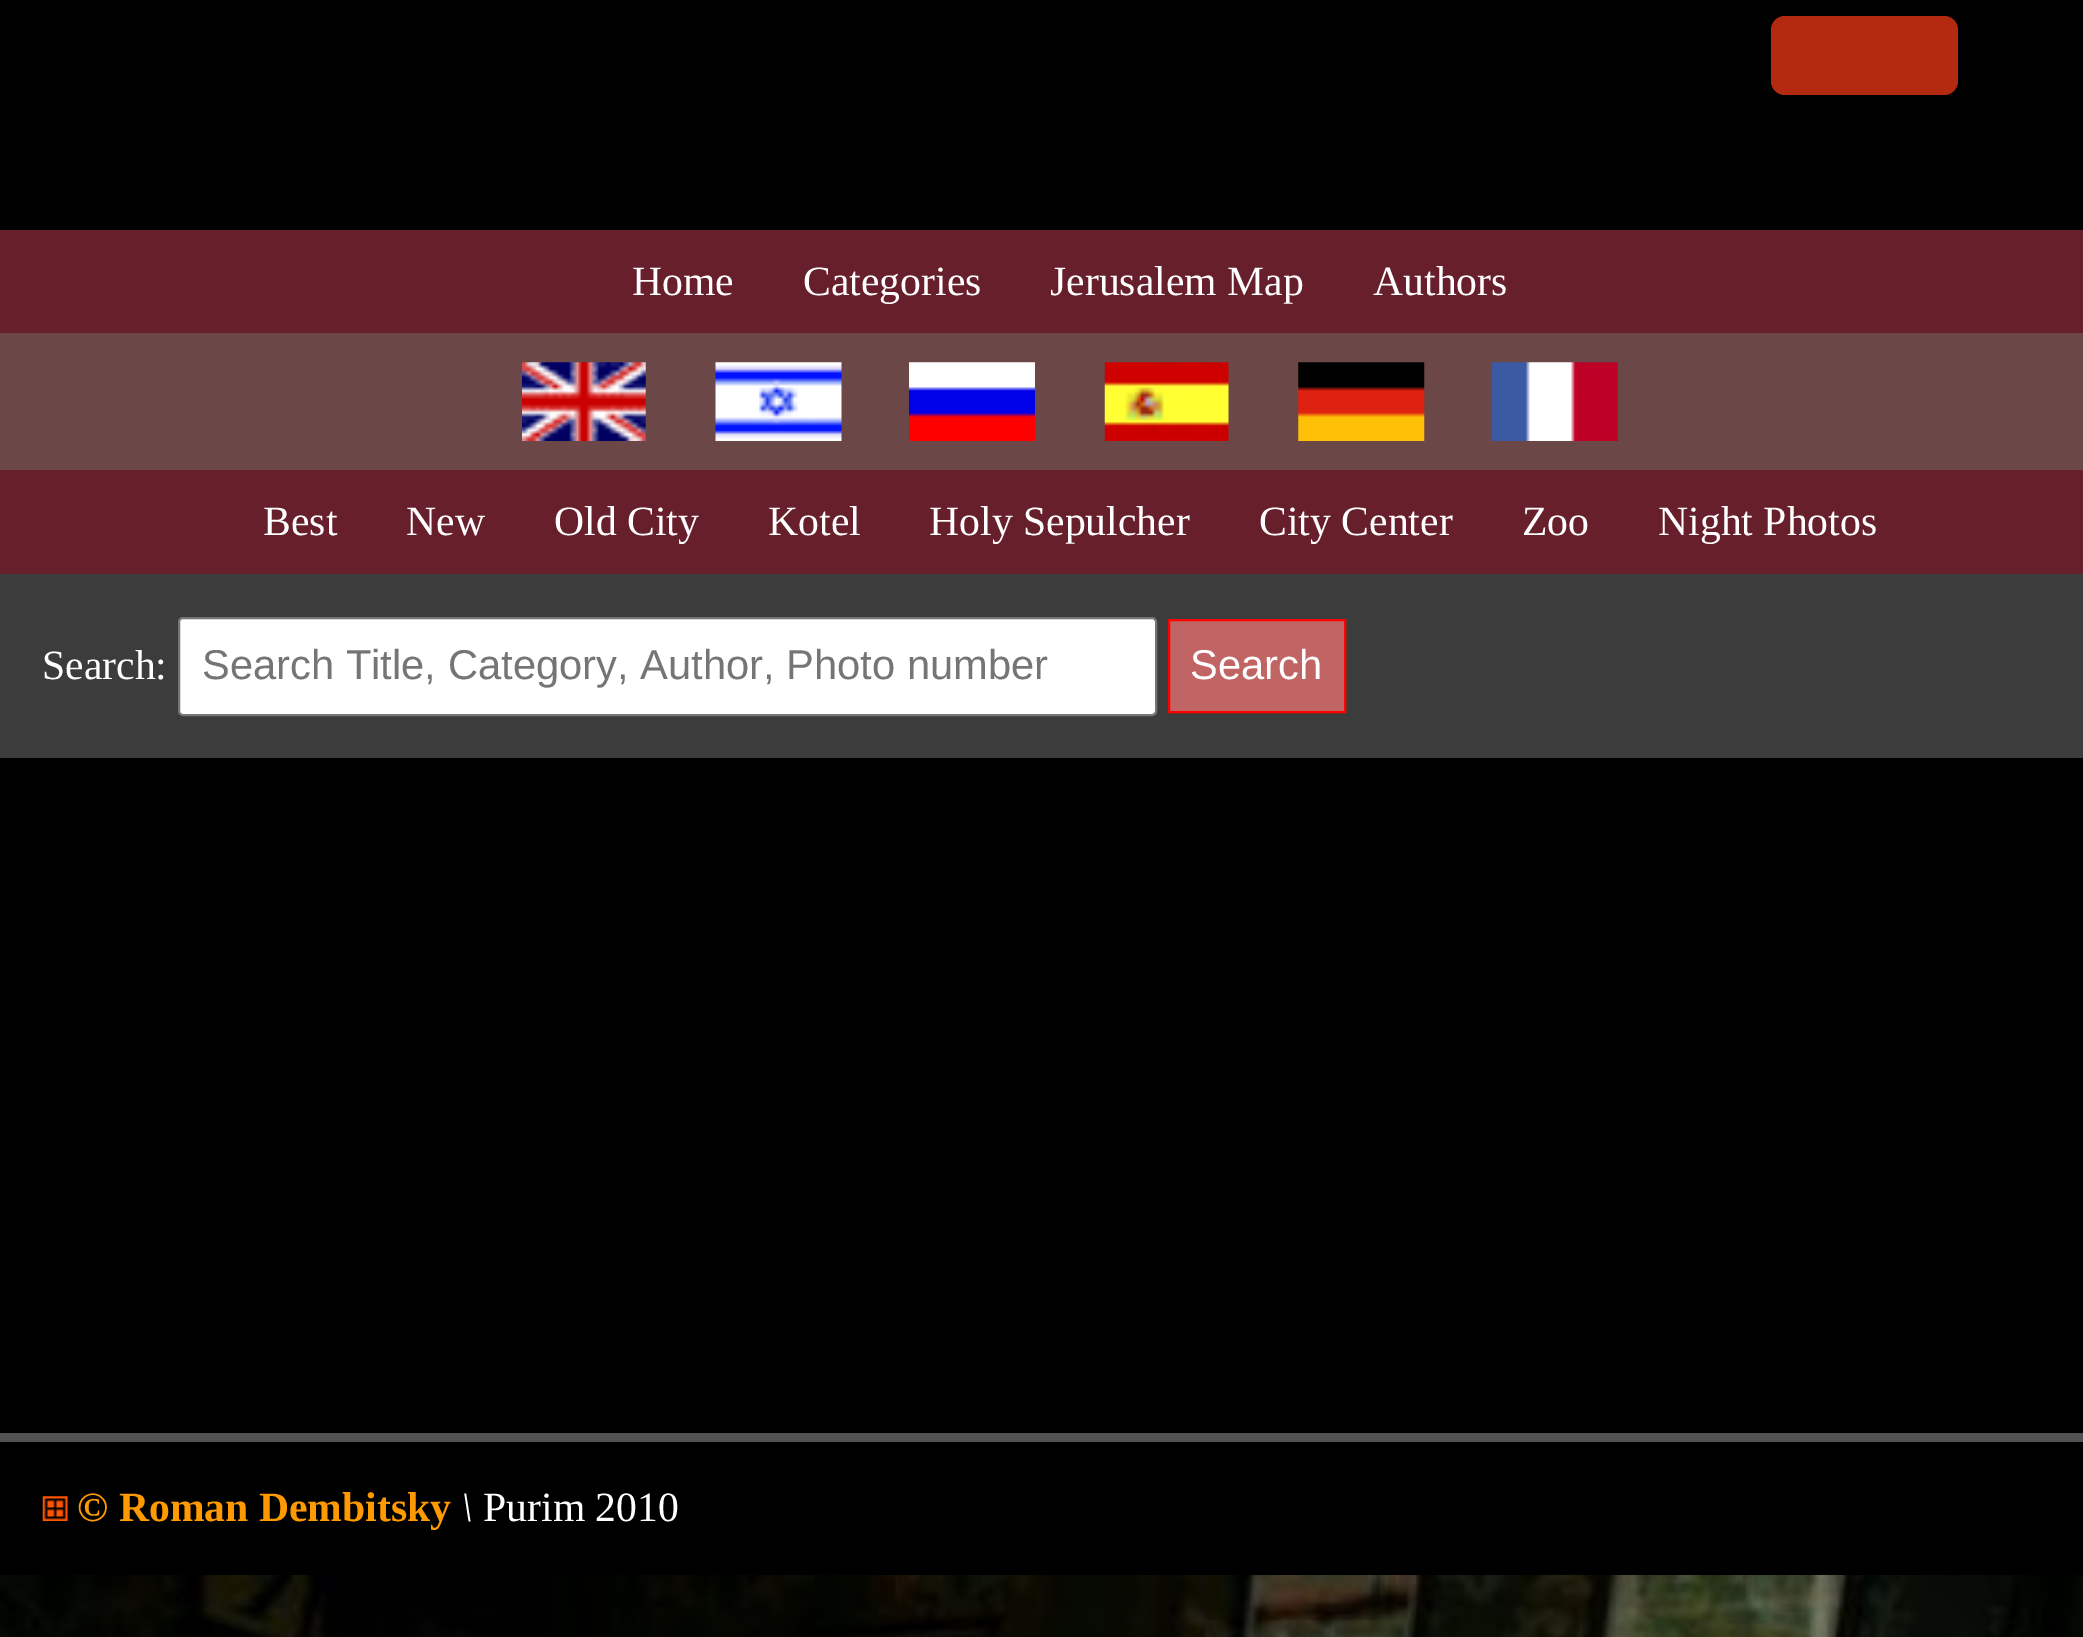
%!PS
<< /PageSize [2083 1637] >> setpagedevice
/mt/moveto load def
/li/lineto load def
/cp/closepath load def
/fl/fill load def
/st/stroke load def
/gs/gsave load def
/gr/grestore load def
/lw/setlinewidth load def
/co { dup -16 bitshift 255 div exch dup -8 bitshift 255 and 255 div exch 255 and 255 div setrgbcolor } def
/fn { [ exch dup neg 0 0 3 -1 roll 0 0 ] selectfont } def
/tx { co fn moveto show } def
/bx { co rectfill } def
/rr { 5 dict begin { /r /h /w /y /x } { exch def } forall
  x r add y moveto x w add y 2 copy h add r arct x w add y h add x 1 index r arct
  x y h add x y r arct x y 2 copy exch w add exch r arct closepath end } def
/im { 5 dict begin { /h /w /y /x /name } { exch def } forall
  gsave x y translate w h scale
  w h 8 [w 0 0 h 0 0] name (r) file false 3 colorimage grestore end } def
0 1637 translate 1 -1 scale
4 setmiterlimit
0 0 2083 1637 16#000000 bx
16#B42A10 co
1771 16 187 79 14 rr fl
0 230 2083 103 16#671F2C bx
0 333 2083 137 16#6B4747 bx
(media/1.raw) 522 362 124 79 im
(media/2.raw) 715 362 127 79 im
(media/3.raw) 909 362 126 79 im
(media/4.raw) 1104 362 125 79 im
(media/5.raw) 1298 362 127 79 im
(media/6.raw) 1491 362 127 79 im
0 470 2083 104 16#671F2C bx
0 574 2083 184 16#3C3C3C bx
16#FFFFFF co
179 618 977 97 4 rr gs fl gr
16#767676 co
2 lw
st
16#C16464 co
1169 620 mt 1345 620 li 1345 712 li 1169 712 li cp gs fl gr
16#FF0000 co
st
0 1433 2083 9 16#525252 bx
(media/7.raw) 42 1496 26 25 im
(media/8.raw) 0 1575 2083 62 im
(Home) 632 295 /LiberationSerif-Regular 41.7 16#FFFFFF tx
(Categories) 803 295 /LiberationSerif-Regular 41.7 16#FFFFFF tx
(Jerusalem Map) 1050 295 /LiberationSerif-Regular 41.7 16#FFFFFF tx
(Authors) 1373 295 /LiberationSerif-Regular 41.7 16#FFFFFF tx
(Best) 263 535 /LiberationSerif-Regular 41.7 16#FFFFFF tx
(New) 406 535 /LiberationSerif-Regular 41.7 16#FFFFFF tx
(Old City) 554 535 /LiberationSerif-Regular 41.7 16#FFFFFF tx
(Kotel) 768 535 /LiberationSerif-Regular 41.7 16#FFFFFF tx
(Holy Sepulcher) 929 535 /LiberationSerif-Regular 41.7 16#FFFFFF tx
(City Center) 1259 535 /LiberationSerif-Regular 41.7 16#FFFFFF tx
(Zoo) 1522 535 /LiberationSerif-Regular 41.7 16#FFFFFF tx
(Night Photos) 1658 535 /LiberationSerif-Regular 41.7 16#FFFFFF tx
(Search:) 42 679 /LiberationSerif-Regular 41.7 16#FFFFFF tx
(Search Title, Category, Author, Photo number) 202 679 /LiberationSans-Regular 41.7 16#757575 tx
(Search) 1190 679 /LiberationSans-Regular 41.7 16#FFFFFF tx
(© Roman Dembitsky) 77 1521 /LiberationSerif-Bold 41.7 16#FF9900 tx
(\\) 461 1521 /LiberationSerif-Italic 41.7 16#FFFFFF tx
(Purim 2010) 483 1521 /LiberationSerif-Regular 41.7 16#FFFFFF tx
showpage
